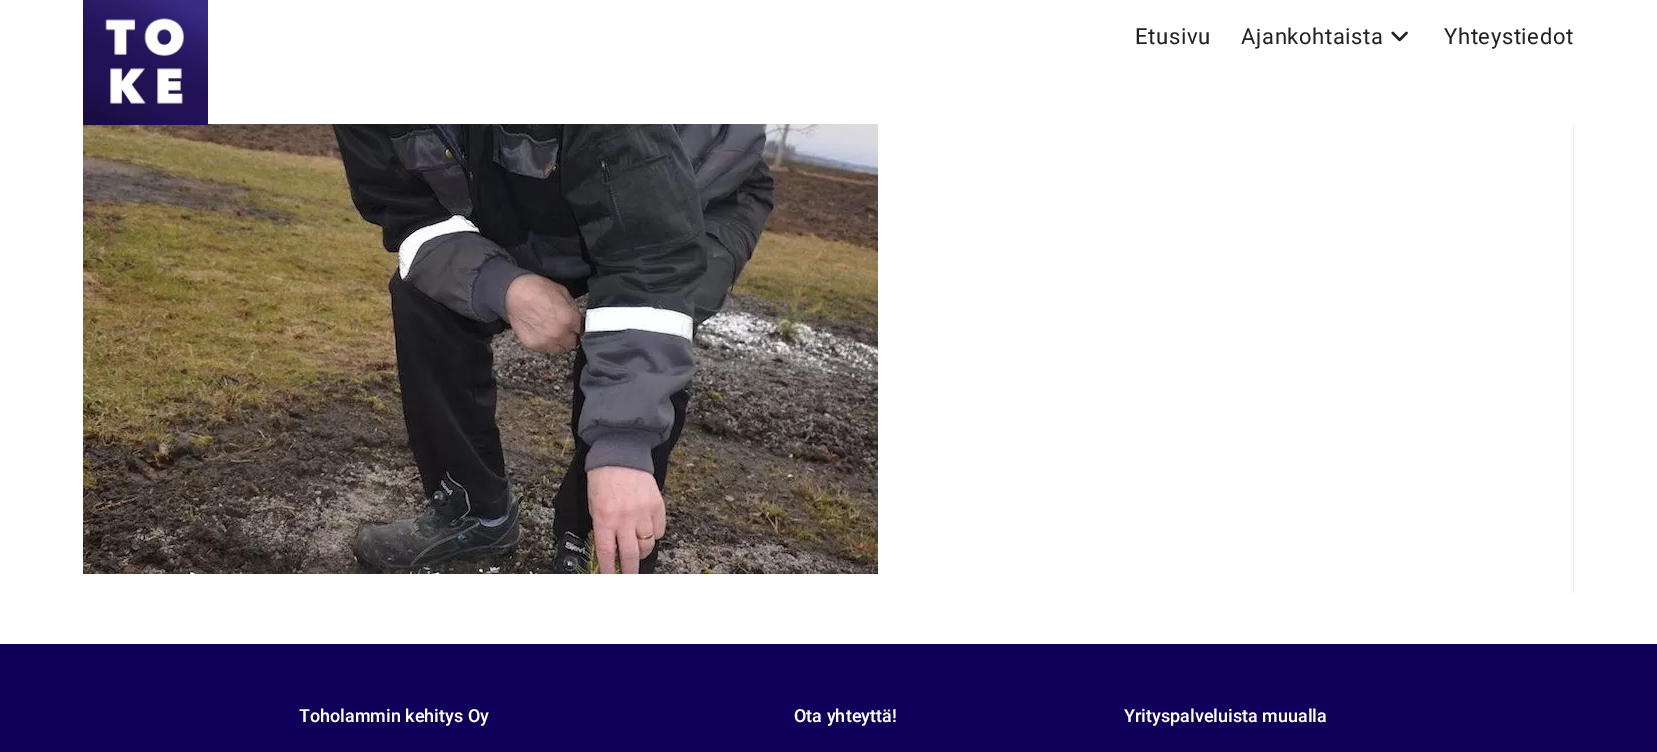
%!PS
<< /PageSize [1657 752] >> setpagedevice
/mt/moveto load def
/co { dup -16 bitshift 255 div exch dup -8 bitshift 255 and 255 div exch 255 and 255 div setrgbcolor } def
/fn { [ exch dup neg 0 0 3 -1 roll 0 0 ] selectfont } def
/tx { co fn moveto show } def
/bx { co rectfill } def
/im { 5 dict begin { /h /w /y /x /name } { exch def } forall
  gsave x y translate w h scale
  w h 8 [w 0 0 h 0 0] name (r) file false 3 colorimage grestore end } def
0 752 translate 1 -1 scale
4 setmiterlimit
0 0 1657 752 16#FFFFFF bx
(media/3.raw) 83 124 795 450 im
(media/1.raw) 83 0 125 125 im
(media/2.raw) 1391 31 17 11 im
1573 124 1 470 16#F1F1F1 bx
0 644 1657 108 16#100059 bx
/Heebo-Regular 22 fn
16#222222 co
1135 44 mt .6 0 (Etusivu) ashow
1241 44 mt .6 0 (Ajankohtaista) ashow
1444 44 mt .6 0 (Yhteystiedot) ashow
(Toholammin kehitys Oy) 299 722 /Heebo-SemiBold 18 16#FFFFFF tx
(Ota yhteyttä!) 794 722 /Heebo-SemiBold 18 16#FFFFFF tx
(Yrityspalveluista muualla) 1124 722 /Heebo-SemiBold 18 16#FFFFFF tx
showpage
